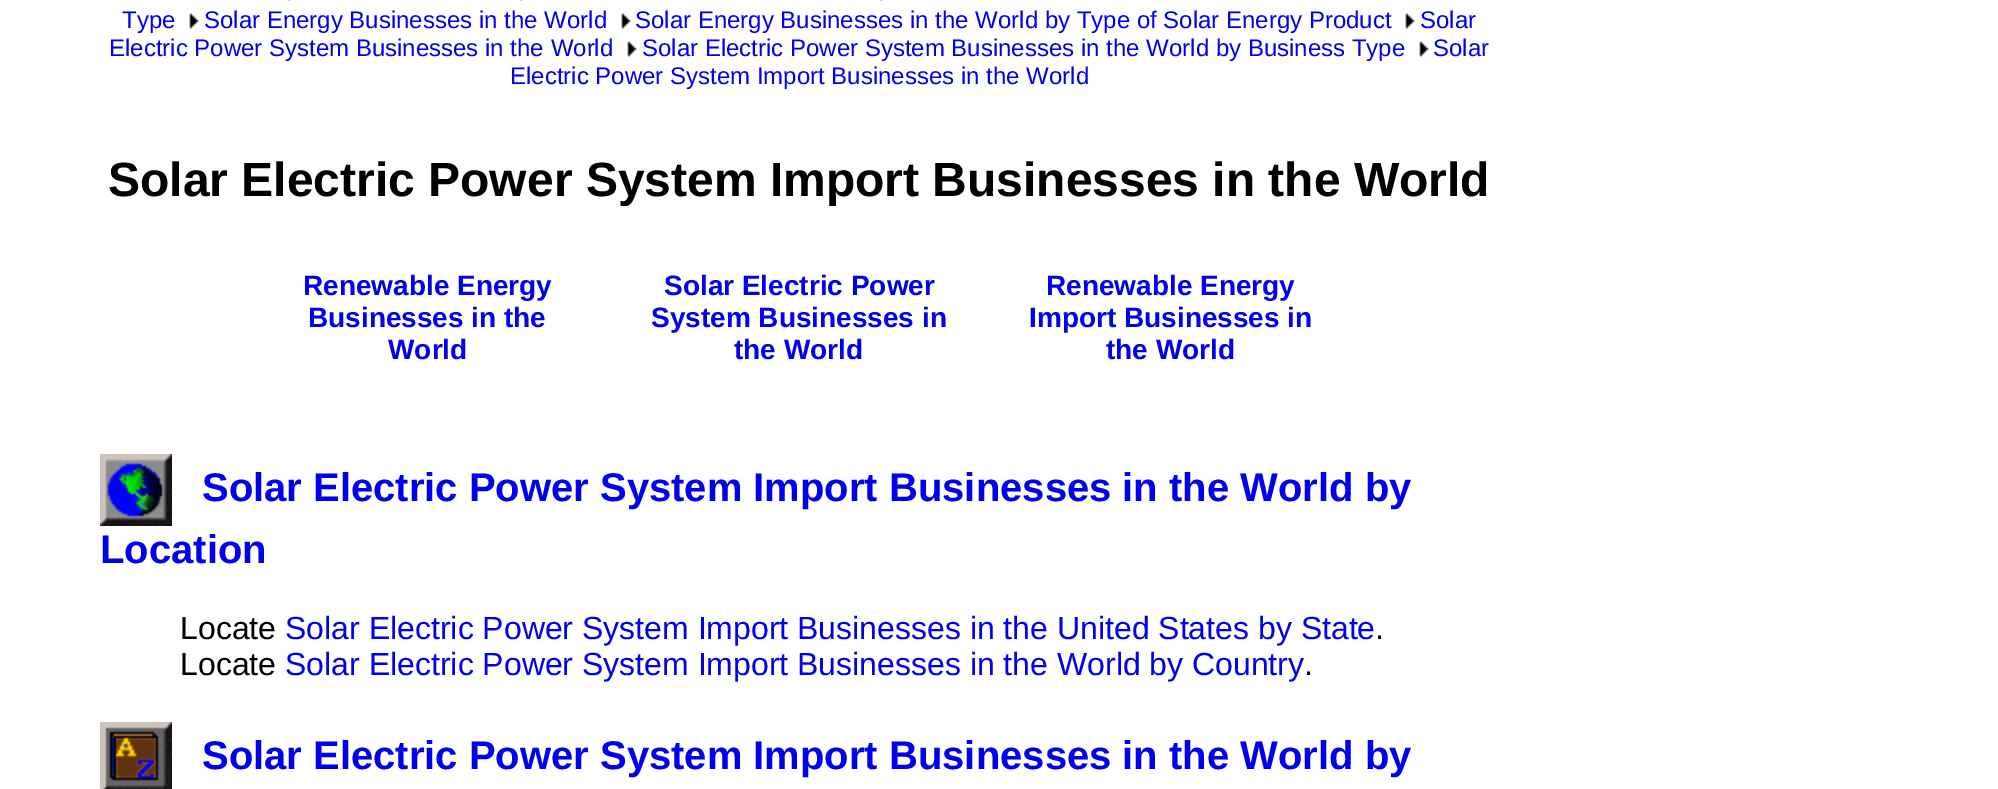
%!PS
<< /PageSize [1998 789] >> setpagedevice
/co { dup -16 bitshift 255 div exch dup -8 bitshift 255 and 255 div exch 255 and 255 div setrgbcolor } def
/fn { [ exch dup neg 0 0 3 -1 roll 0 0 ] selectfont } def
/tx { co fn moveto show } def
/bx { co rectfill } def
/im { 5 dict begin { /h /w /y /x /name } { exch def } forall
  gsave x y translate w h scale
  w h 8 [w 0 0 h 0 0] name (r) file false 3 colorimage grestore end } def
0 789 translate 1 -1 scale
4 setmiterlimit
0 0 1998 789 16#FFFFFF bx
(media/1.raw) 287 0 4 1 im
(media/1.raw) 519 0 4 1 im
(media/1.raw) 879 0 4 1 im
(media/2.raw) 189 13 10 16 im
(media/2.raw) 621 13 10 16 im
(media/2.raw) 1405 13 10 16 im
(media/2.raw) 627 41 10 16 im
(media/2.raw) 1419 41 10 16 im
(media/3.raw) 100 454 72 72 im
(media/4.raw) 100 722 72 67 im
(Type) 122 28 /LiberationSans-Regular 24 16#0000EE tx
(Solar Energy Businesses in the World) 204 28 /LiberationSans-Regular 24 16#0000EE tx
(Solar Energy Businesses in the World by Type of Solar Energy Product) 635 28 /LiberationSans-Regular 24 16#0000EE tx
(Solar) 1420 28 /LiberationSans-Regular 24 16#0000EE tx
(Electric Power System Businesses in the World) 109 56 /LiberationSans-Regular 24 16#0000EE tx
(Solar Electric Power System Businesses in the World by Business Type) 642 56 /LiberationSans-Regular 24 16#0000EE tx
(Solar) 1433 56 /LiberationSans-Regular 24 16#0000EE tx
(Electric Power System Import Businesses in the World) 510 84 /LiberationSans-Regular 24 16#0000EE tx
(Solar Electric Power System Import Businesses in the World) 108 196 /LiberationSans-Bold 48 16#000000 tx
(Renewable Energy) 303 295 /LiberationSans-Bold 28 16#0000EE tx
(Businesses in the) 308 327 /LiberationSans-Bold 28 16#0000EE tx
(World) 388 359 /LiberationSans-Bold 28 16#0000EE tx
(Solar Electric Power) 664 295 /LiberationSans-Bold 28 16#0000EE tx
(System Businesses in) 651 327 /LiberationSans-Bold 28 16#0000EE tx
(the World) 734 359 /LiberationSans-Bold 28 16#0000EE tx
(Renewable Energy) 1046 295 /LiberationSans-Bold 28 16#0000EE tx
(Import Businesses in) 1029 327 /LiberationSans-Bold 28 16#0000EE tx
(the World) 1106 359 /LiberationSans-Bold 28 16#0000EE tx
(Solar Electric Power System Import Businesses in the World by) 202 501 /LiberationSans-Bold 40 16#0000EE tx
(Location) 100 563 /LiberationSans-Bold 40 16#0000EE tx
(Locate) 180 639 /LiberationSans-Regular 32 16#000000 tx
(Solar Electric Power System Import Businesses in the United States by State) 285 639 /LiberationSans-Regular 32 16#0000EE tx
(.) 1375 639 /LiberationSans-Regular 32 16#000000 tx
(Locate) 180 675 /LiberationSans-Regular 32 16#000000 tx
(Solar Electric Power System Import Businesses in the World by Country) 285 675 /LiberationSans-Regular 32 16#0000EE tx
(.) 1304 675 /LiberationSans-Regular 32 16#000000 tx
(Solar Electric Power System Import Businesses in the World by) 202 769 /LiberationSans-Bold 40 16#0000EE tx
showpage
